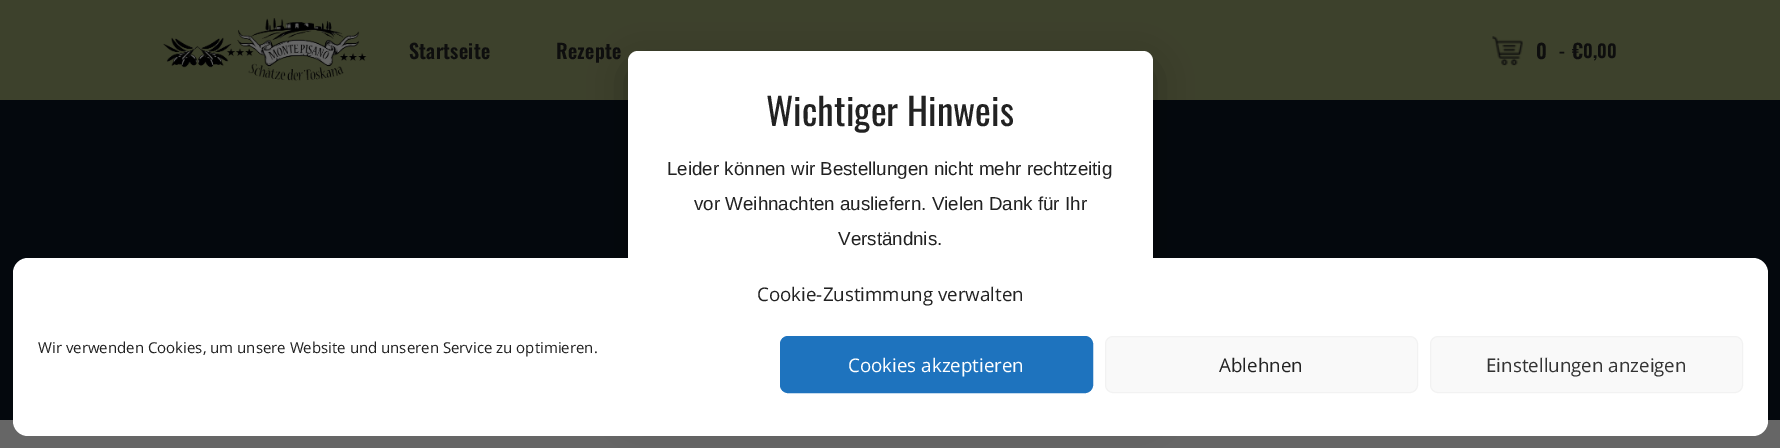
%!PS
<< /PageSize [1780 448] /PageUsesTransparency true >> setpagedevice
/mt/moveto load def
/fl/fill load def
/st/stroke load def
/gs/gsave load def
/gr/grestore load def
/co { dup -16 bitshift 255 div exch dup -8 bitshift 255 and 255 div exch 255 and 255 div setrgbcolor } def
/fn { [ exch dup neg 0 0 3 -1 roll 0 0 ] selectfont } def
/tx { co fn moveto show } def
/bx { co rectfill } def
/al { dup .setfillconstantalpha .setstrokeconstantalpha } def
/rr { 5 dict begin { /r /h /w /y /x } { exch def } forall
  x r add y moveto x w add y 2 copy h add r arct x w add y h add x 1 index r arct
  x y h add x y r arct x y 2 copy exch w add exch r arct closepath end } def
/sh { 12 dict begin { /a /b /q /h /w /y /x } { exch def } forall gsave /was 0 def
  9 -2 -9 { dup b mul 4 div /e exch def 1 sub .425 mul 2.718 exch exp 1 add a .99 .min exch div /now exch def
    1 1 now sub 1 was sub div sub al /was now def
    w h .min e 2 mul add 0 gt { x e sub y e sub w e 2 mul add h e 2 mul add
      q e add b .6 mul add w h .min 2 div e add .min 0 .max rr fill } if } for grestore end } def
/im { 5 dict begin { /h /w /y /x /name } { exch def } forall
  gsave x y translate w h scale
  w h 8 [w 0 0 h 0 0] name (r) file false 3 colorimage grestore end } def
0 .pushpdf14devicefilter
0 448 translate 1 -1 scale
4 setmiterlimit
0 0 1780 448 16#666666 bx
0 0 1780 100 16#3D412C bx
(media/1.raw) 163 18 204 63 im
(media/2.raw) 1492 36 31 30 im
0 100 1780 320 16#04080D bx
16#000000 co
628 64 525 349 10 19 .3 sh
16#FFFFFF co
628 51 525 349 10 rr fl
13 258 1755 178 15 rr fl
16#1E73BE co
780.5 336.5 312 56 7.5 rr gs fl gr
st
16#F9F9F9 co
1105.5 336.5 312 56 7.5 rr gs fl gr
16#F2F2F2 co
st
16#F9F9F9 co
1430.5 336.5 312 56 7.5 rr gs fl gr
16#F2F2F2 co
st
/Oswald-SemiBold 20 fn
16#0E0E0E co
409 59 mt .25 0 (Startseite) ashow
556 59 mt .25 0 (Rezepte) ashow
1536 59 mt .25 0 (0) ashow
/Oswald-SemiBold 18 fn
1559 58 mt .25 0 (-) ashow
/Oswald-SemiBold 20 fn
1572 59 mt .25 0 (€) ashow
/Oswald-SemiBold 18 fn
1583 58 mt .25 0 (0,00) ashow
(Wichtiger Hinweis) 766 126 /Oswald-Regular 37.5 16#222222 tx
(Leider können wir Bestellungen nicht mehr rechtzeitig) 667 175 /LiberationSans-Regular 18.75 16#222222 tx
(vor Weihnachten ausliefern. Vielen Dank für Ihr) 694 210 /LiberationSans-Regular 18.75 16#222222 tx
(Verständnis.) 838 245 /LiberationSans-Regular 18.75 16#222222 tx
(Cookie-Zustimmung verwalten) 757 301 /OpenSans-Regular 18.75 16#222222 tx
(Wir verwenden Cookies, um unsere Website und unseren Service zu optimieren.) 38 353 /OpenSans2-Regular 15 16#222222 tx
(Cookies akzeptieren) 848 372 /OpenSans-Regular 18.75 16#FFFFFF tx
(Ablehnen) 1219 372 /OpenSans-Regular 18.75 16#222222 tx
(Einstellungen anzeigen) 1486 372 /OpenSans-Regular 18.75 16#333333 tx
.poppdf14devicefilter showpage
